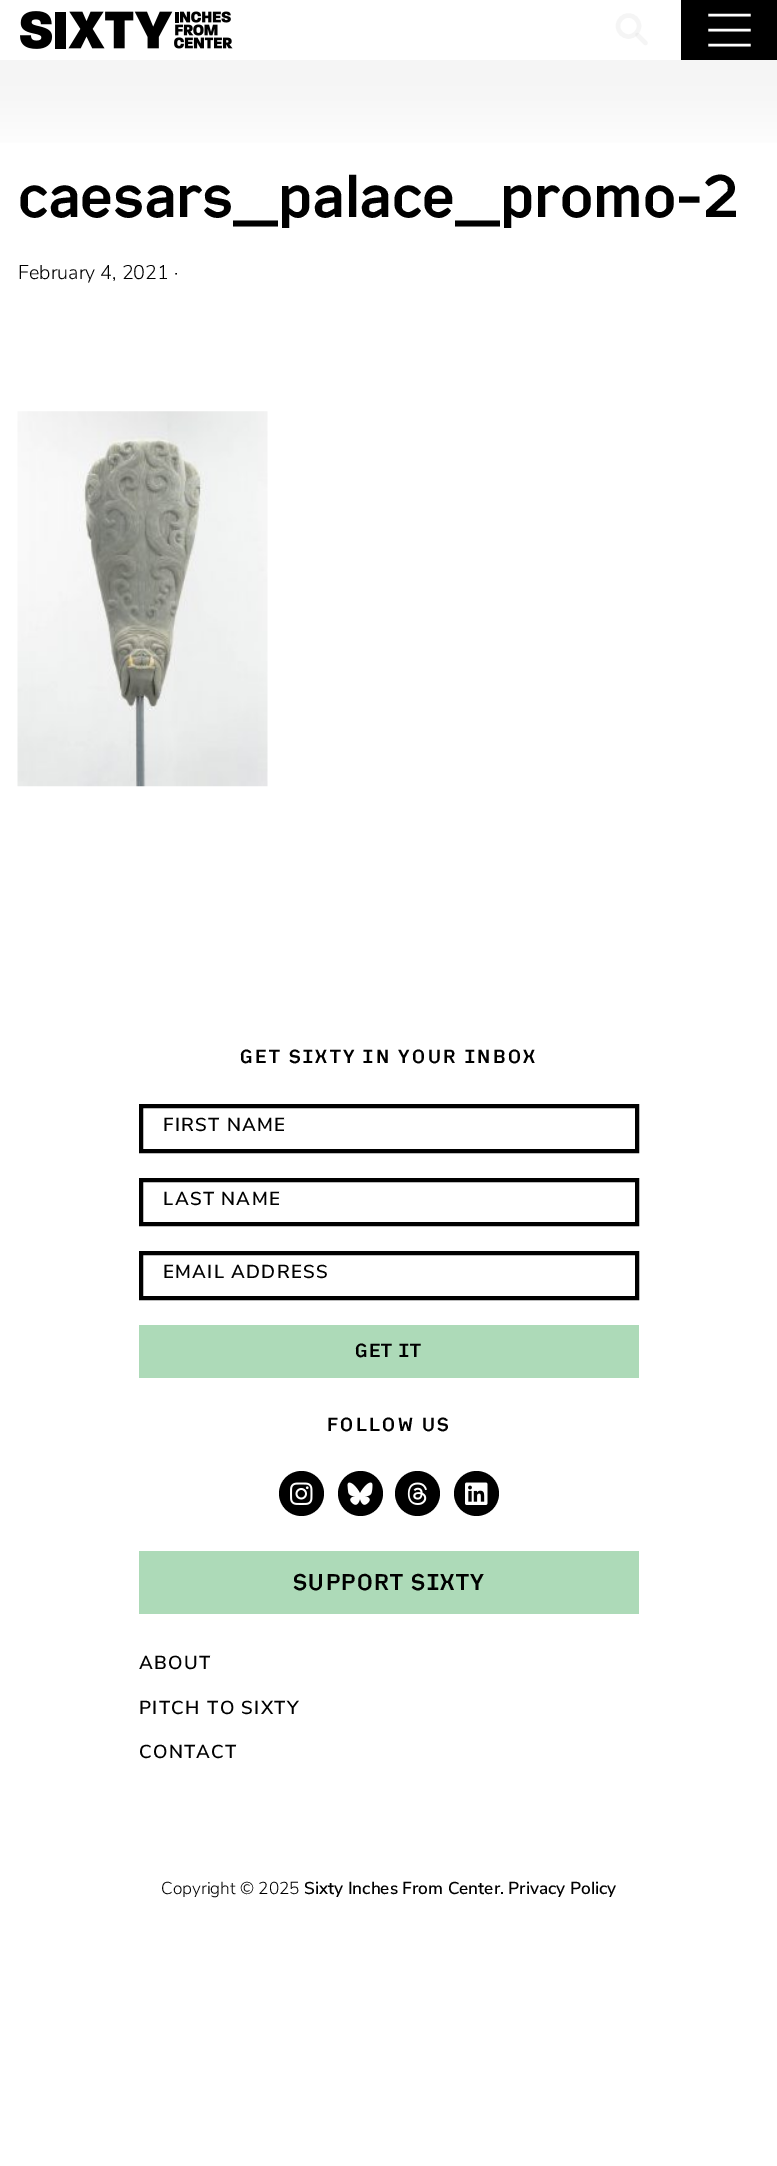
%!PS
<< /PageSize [777 2166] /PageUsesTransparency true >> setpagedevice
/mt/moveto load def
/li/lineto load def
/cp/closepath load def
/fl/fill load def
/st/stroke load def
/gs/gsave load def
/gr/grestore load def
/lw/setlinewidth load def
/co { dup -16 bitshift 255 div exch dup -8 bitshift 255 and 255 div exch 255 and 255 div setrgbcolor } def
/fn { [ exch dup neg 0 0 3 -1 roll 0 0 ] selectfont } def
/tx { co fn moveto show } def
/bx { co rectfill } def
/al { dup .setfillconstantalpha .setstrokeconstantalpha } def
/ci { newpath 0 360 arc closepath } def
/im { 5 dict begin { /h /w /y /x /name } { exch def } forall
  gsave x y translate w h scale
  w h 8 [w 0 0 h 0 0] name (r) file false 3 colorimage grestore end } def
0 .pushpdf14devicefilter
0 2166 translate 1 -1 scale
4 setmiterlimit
0 0 777 2166 16#FFFFFF bx
gs 0 60 mt 777 60 li 777 143 li 0 143 li cp clip newpath
<< /ShadingType 2 /ColorSpace /DeviceRGB /Coords [389 0 389 163] /Extend [true true] /Function << /FunctionType 3 /Domain [0 1] /Functions [<< /FunctionType 2 /Domain [0 1] /C0 [.961 .961 .961] /C1 [.961 .961 .961] /N 1 >> << /FunctionType 2 /Domain [0 1] /C0 [.961 .961 .961] /C1 [1 1 1] /N 1 >>] /Bounds [.5] /Encode [0 1 0 1] >> >> shfill gr
(media/1.raw) 20 11 213 38 im
16#F5F5F5 co
4.4 lw
628.5 26 10.5 ci st
0.2 al
16#CCCCCC co
1 setlinecap
637.5 35 mt 645.5 43 li st
1 al
681 0 96 60 16#000000 bx
16#FFFFFF co
2.5 lw
2 setlinecap
709.5 15 mt 749.5 15 li 709.5 30 mt 749.5 30 li 709.5 45 mt 749.5 45 li st
(media/2.raw) 17 411 251 376 im
16#000000 co
4 lw
0 setlinecap
141 1106 496 45 rectstroke
141 1180 496 44 rectstroke
141 1253 496 45 rectstroke
139 1325 500 53 16#ADDAB8 bx
16#000000 co
301.5 1493.5 22.5 ci fl
(media/3.raw) 290 1482 23 23 im
360.5 1493.5 22.5 ci fl
(media/4.raw) 347 1482 26 23 im
417.5 1493.5 22.5 ci fl
(media/5.raw) 407 1482 20 23 im
476.5 1493.5 22.5 ci fl
(media/6.raw) 465 1482 23 23 im
139 1551 500 63 16#ADDAB8 bx
(caesars_palace_promo-2) 18 217 /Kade-Medium 60 16#000000 tx
(February 4, 2021 ·) 18 279 /NunitoSans-Light 19.75 16#000000 tx
/Kade-Medium 18.75 fn
240 1063 mt 2.5 0 (GET SIXTY IN YOUR INBOX) ashow
/NunitoSans-SemiBold 18.75 fn
163 1131 mt 1.25 0 (FIRST NAME) ashow
163 1205 mt 1.25 0 (LAST NAME) ashow
163 1278 mt 1.25 0 (EMAIL ADDRESS) ashow
/Kade-Medium 18.75 fn
355 1357 mt 1.25 0 (GET IT) ashow
327 1431 mt 2.5 0 (FOLLOW US) ashow
/Kade-Medium 22.5 fn
293 1590 mt 1.5 0 (SUPPORT SIXTY) ashow
/NunitoSans-SemiBold 18.75 fn
139 1669 mt 1.25 0 (ABOUT) ashow
139 1714 mt 1.25 0 (PITCH TO SIXTY) ashow
139 1758 mt 1.25 0 (CONTACT) ashow
(Copyright © 2025) 161 1894 /NunitoSans-Light 17.25 16#000000 tx
(Sixty Inches From Center.) 304 1894 /NunitoSans-SemiBold 17.25 16#000000 tx
(Privacy Policy) 508 1894 /NunitoSans-SemiBold 17.25 16#000000 tx
.poppdf14devicefilter showpage
